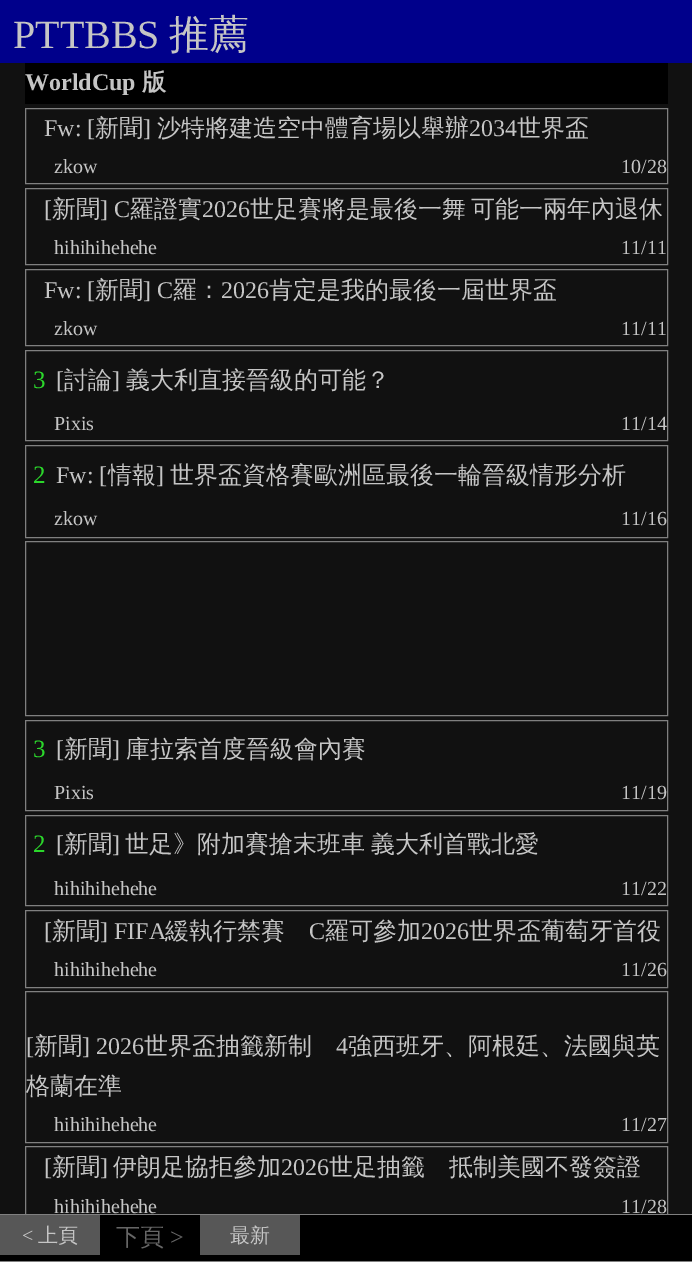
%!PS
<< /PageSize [692 1262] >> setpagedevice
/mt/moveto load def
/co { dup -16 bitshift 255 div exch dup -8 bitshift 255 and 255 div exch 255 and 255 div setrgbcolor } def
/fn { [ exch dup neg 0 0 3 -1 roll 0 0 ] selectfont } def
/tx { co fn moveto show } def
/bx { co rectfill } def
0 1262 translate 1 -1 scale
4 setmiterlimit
0 0 692 1262 16#111111 bx
0 0 692 63 16#00008B bx
25 63 643 41 16#000000 bx
16#808080 co
25.5 108.5 642 75 rectstroke
25.5 188.5 642 76 rectstroke
25.5 269.5 642 76 rectstroke
25.5 350.5 642 90 rectstroke
25.5 445.5 642 92 rectstroke
25.5 541.5 642 174 rectstroke
25.5 720.5 642 90 rectstroke
25.5 815.5 642 90 rectstroke
25.5 910.5 642 77 rectstroke
25.5 991.5 642 151 rectstroke
25.5 1146.5 642 77 rectstroke
0 1215 692 46 16#000000 bx
0 1214 692 1 16#808080 bx
0 1261 692 1 16#808080 bx
0 1215 100 40 16#575757 bx
200 1215 100 40 16#575757 bx
(PTTBBS) 13 48 /LiberationSerif-Regular 40 16#C5C5C5 tx
(推薦) 169 48 /WenQuanYiZenHei-Medium 40 16#C5C5C5 tx
(WorldCup) 25 90 /LiberationSerif-Bold 24 16#C5C5C5 tx
(版) 142 90 /WenQuanYiZenHei-Bold 24 16#C5C5C5 tx
(Fw: [) 44 136 /LiberationSerif-Regular 24 16#C5C5C5 tx
(新聞) 95 136 /WenQuanYiZenHei-Medium 24 16#C5C5C5 tx
(]) 143 136 /LiberationSerif-Regular 24 16#C5C5C5 tx
(沙特將建造空中體育場以舉辦) 157 136 /WenQuanYiZenHei-Medium 24 16#C5C5C5 tx
(2034) 469 136 /LiberationSerif-Regular 24 16#C5C5C5 tx
(世界盃) 517 136 /WenQuanYiZenHei-Medium 24 16#C5C5C5 tx
(zkow) 54 173 /LiberationSerif-Regular 20 16#C5C5C5 tx
(10/28) 621 173 /LiberationSerif-Regular 20 16#C5C5C5 tx
([) 44 217 /LiberationSerif-Regular 24 16#C5C5C5 tx
(新聞) 52 217 /WenQuanYiZenHei-Medium 24 16#C5C5C5 tx
(] C) 100 217 /LiberationSerif-Regular 24 16#C5C5C5 tx
(羅證實) 130 217 /WenQuanYiZenHei-Medium 24 16#C5C5C5 tx
(2026) 202 217 /LiberationSerif-Regular 24 16#C5C5C5 tx
(世足賽將是最後一舞) 250 217 /WenQuanYiZenHei-Medium 24 16#C5C5C5 tx
(可能一兩年內退休) 471 217 /WenQuanYiZenHei-Medium 24 16#C5C5C5 tx
(hihihihehehe) 54 254 /LiberationSerif-Regular 20 16#C5C5C5 tx
(11/11) 621 254 /LiberationSerif-Regular 20 16#C5C5C5 tx
(Fw: [) 44 298 /LiberationSerif-Regular 24 16#C5C5C5 tx
(新聞) 95 298 /WenQuanYiZenHei-Medium 24 16#C5C5C5 tx
(] C) 143 298 /LiberationSerif-Regular 24 16#C5C5C5 tx
(羅：) 173 298 /WenQuanYiZenHei-Medium 24 16#C5C5C5 tx
(2026) 221 298 /LiberationSerif-Regular 24 16#C5C5C5 tx
(肯定是我的最後一屆世界盃) 269 298 /WenQuanYiZenHei-Medium 24 16#C5C5C5 tx
(zkow) 54 335 /LiberationSerif-Regular 20 16#C5C5C5 tx
(11/11) 621 335 /LiberationSerif-Regular 20 16#C5C5C5 tx
(3) 33 388 /LiberationSerif-Regular 25 16#2BD72B tx
([) 56 388 /LiberationSerif-Regular 24 16#C5C5C5 tx
(討論) 64 388 /WenQuanYiZenHei-Medium 24 16#C5C5C5 tx
(]) 112 388 /LiberationSerif-Regular 24 16#C5C5C5 tx
(義大利直接晉級的可能？) 126 388 /WenQuanYiZenHei-Medium 24 16#C5C5C5 tx
(Pixis) 54 430 /LiberationSerif-Regular 20 16#C5C5C5 tx
(11/14) 621 430 /LiberationSerif-Regular 20 16#C5C5C5 tx
(2) 33 483 /LiberationSerif-Regular 25 16#2BD72B tx
(Fw: [) 56 483 /LiberationSerif-Regular 24 16#C5C5C5 tx
(情報) 108 483 /WenQuanYiZenHei-Medium 24 16#C5C5C5 tx
(]) 156 483 /LiberationSerif-Regular 24 16#C5C5C5 tx
(世界盃資格賽歐洲區最後一輪晉級情形分析) 170 483 /WenQuanYiZenHei-Medium 24 16#C5C5C5 tx
(zkow) 54 525 /LiberationSerif-Regular 20 16#C5C5C5 tx
(11/16) 621 525 /LiberationSerif-Regular 20 16#C5C5C5 tx
(3) 33 757 /LiberationSerif-Regular 25 16#2BD72B tx
([) 56 757 /LiberationSerif-Regular 24 16#C5C5C5 tx
(新聞) 64 757 /WenQuanYiZenHei-Medium 24 16#C5C5C5 tx
(]) 112 757 /LiberationSerif-Regular 24 16#C5C5C5 tx
(庫拉索首度晉級會內賽) 126 757 /WenQuanYiZenHei-Medium 24 16#C5C5C5 tx
(Pixis) 54 799 /LiberationSerif-Regular 20 16#C5C5C5 tx
(11/19) 621 799 /LiberationSerif-Regular 20 16#C5C5C5 tx
(2) 33 852 /LiberationSerif-Regular 25 16#2BD72B tx
([) 56 852 /LiberationSerif-Regular 24 16#C5C5C5 tx
(新聞) 64 852 /WenQuanYiZenHei-Medium 24 16#C5C5C5 tx
(]) 112 852 /LiberationSerif-Regular 24 16#C5C5C5 tx
/WenQuanYiZenHei-Medium 24 fn
125 852 mt -1 0 32 (世足》附加賽搶末班車 義大利首戰北愛) widthshow
(hihihihehehe) 54 895 /LiberationSerif-Regular 20 16#C5C5C5 tx
(11/22) 621 895 /LiberationSerif-Regular 20 16#C5C5C5 tx
([) 44 939 /LiberationSerif-Regular 24 16#C5C5C5 tx
(新聞) 52 939 /WenQuanYiZenHei-Medium 24 16#C5C5C5 tx
(] FIFA) 100 939 /LiberationSerif-Regular 24 16#C5C5C5 tx
(緩執行禁賽) 165 939 /WenQuanYiZenHei-Medium 24 16#C5C5C5 tx
(C) 309 939 /LiberationSerif-Regular 24 16#C5C5C5 tx
(羅可參加) 325 939 /WenQuanYiZenHei-Medium 24 16#C5C5C5 tx
(2026) 421 939 /LiberationSerif-Regular 24 16#C5C5C5 tx
(世界盃葡萄牙首役) 469 939 /WenQuanYiZenHei-Medium 24 16#C5C5C5 tx
(hihihihehehe) 54 976 /LiberationSerif-Regular 20 16#C5C5C5 tx
(11/26) 621 976 /LiberationSerif-Regular 20 16#C5C5C5 tx
([) 26 1054 /LiberationSerif-Regular 24 16#C5C5C5 tx
(新聞) 34 1054 /WenQuanYiZenHei-Medium 24 16#C5C5C5 tx
(] 2026) 82 1054 /LiberationSerif-Regular 24 16#C5C5C5 tx
(世界盃抽籤新制) 144 1054 /WenQuanYiZenHei-Medium 24 16#C5C5C5 tx
(4) 336 1054 /LiberationSerif-Regular 24 16#C5C5C5 tx
(強西班牙、阿根廷、法國與英) 348 1054 /WenQuanYiZenHei-Medium 24 16#C5C5C5 tx
(格蘭在準) 26 1094 /WenQuanYiZenHei-Medium 24 16#C5C5C5 tx
(hihihihehehe) 54 1131 /LiberationSerif-Regular 20 16#C5C5C5 tx
(11/27) 621 1131 /LiberationSerif-Regular 20 16#C5C5C5 tx
([) 44 1175 /LiberationSerif-Regular 24 16#C5C5C5 tx
(新聞) 52 1175 /WenQuanYiZenHei-Medium 24 16#C5C5C5 tx
(]) 100 1175 /LiberationSerif-Regular 24 16#C5C5C5 tx
(伊朗足協拒參加) 113 1175 /WenQuanYiZenHei-Medium 24 16#C5C5C5 tx
(2026) 281 1175 /LiberationSerif-Regular 24 16#C5C5C5 tx
(世足抽籤　抵制美國不發簽證) 329 1175 /WenQuanYiZenHei-Medium 24 16#C5C5C5 tx
(hihihihehehe) 54 1213 /LiberationSerif-Regular 20 16#C5C5C5 tx
(11/28) 621 1213 /LiberationSerif-Regular 20 16#C5C5C5 tx
(<) 22 1242 /LiberationSerif-Regular 20 16#C5C5C5 tx
(上頁) 38 1242 /WenQuanYiZenHei-Medium 20 16#C5C5C5 tx
(下頁) 116 1245 /WenQuanYiZenHei-Medium 24 16#666666 tx
(>) 170 1245 /LiberationSerif-Regular 24 16#666666 tx
(最新) 230 1242 /WenQuanYiZenHei-Medium 20 16#C5C5C5 tx
showpage
